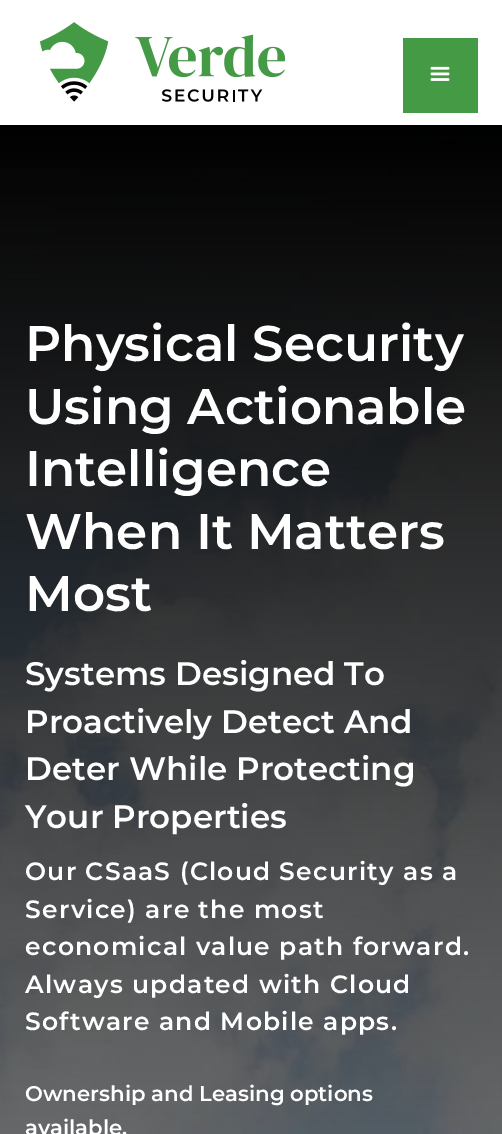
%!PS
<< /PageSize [502 1134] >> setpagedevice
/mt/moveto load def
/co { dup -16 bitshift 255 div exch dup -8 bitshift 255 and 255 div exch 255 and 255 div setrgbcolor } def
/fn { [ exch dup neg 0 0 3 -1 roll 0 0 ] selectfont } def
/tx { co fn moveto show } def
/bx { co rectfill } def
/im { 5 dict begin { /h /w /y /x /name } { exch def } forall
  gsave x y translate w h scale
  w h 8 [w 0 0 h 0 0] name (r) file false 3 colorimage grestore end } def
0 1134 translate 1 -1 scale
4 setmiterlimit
0 0 502 1134 16#FFFFFF bx
(media/1.raw) 40 22 246 80 im
403 38 75 75 16#459A45 bx
(media/2.raw) 430 66 20 15 im
(media/3.raw) 0 125 502 1009 im
(Physical Security) 25 361 /Montserrat-SemiBold 50 16#FFFFFF tx
(Using Actionable) 25 424 /Montserrat-SemiBold 50 16#FFFFFF tx
(Intelligence) 25 486 /Montserrat-SemiBold 50 16#FFFFFF tx
(When It Matters) 25 549 /Montserrat-SemiBold 50 16#FFFFFF tx
(Most) 25 611 /Montserrat-SemiBold 50 16#FFFFFF tx
(Systems Designed To) 25 685 /Montserrat-SemiBold 32.5 16#FFFFFF tx
(Proactively Detect And) 25 733 /Montserrat-SemiBold 32.5 16#FFFFFF tx
(Deter While Protecting) 25 780 /Montserrat-SemiBold 32.5 16#FFFFFF tx
(Your Properties) 25 828 /Montserrat-SemiBold 32.5 16#FFFFFF tx
/Montserrat-SemiBold 25 fn
25 880 mt 1.25 0 (Our CSaaS \(Cloud Security as a) ashow
25 918 mt 1.25 0 (Service\) are the most) ashow
25 955 mt 1.25 0 (economical value path forward.) ashow
25 993 mt 1.25 0 (Always updated with Cloud) ashow
25 1030 mt 1.25 0 (Software and Mobile apps.) ashow
(Ownership and Leasing options) 25 1101 /Montserrat-SemiBold 21.25 16#FFFFFF tx
(available.) 25 1135 /Montserrat-SemiBold 21.25 16#FFFFFF tx
showpage
